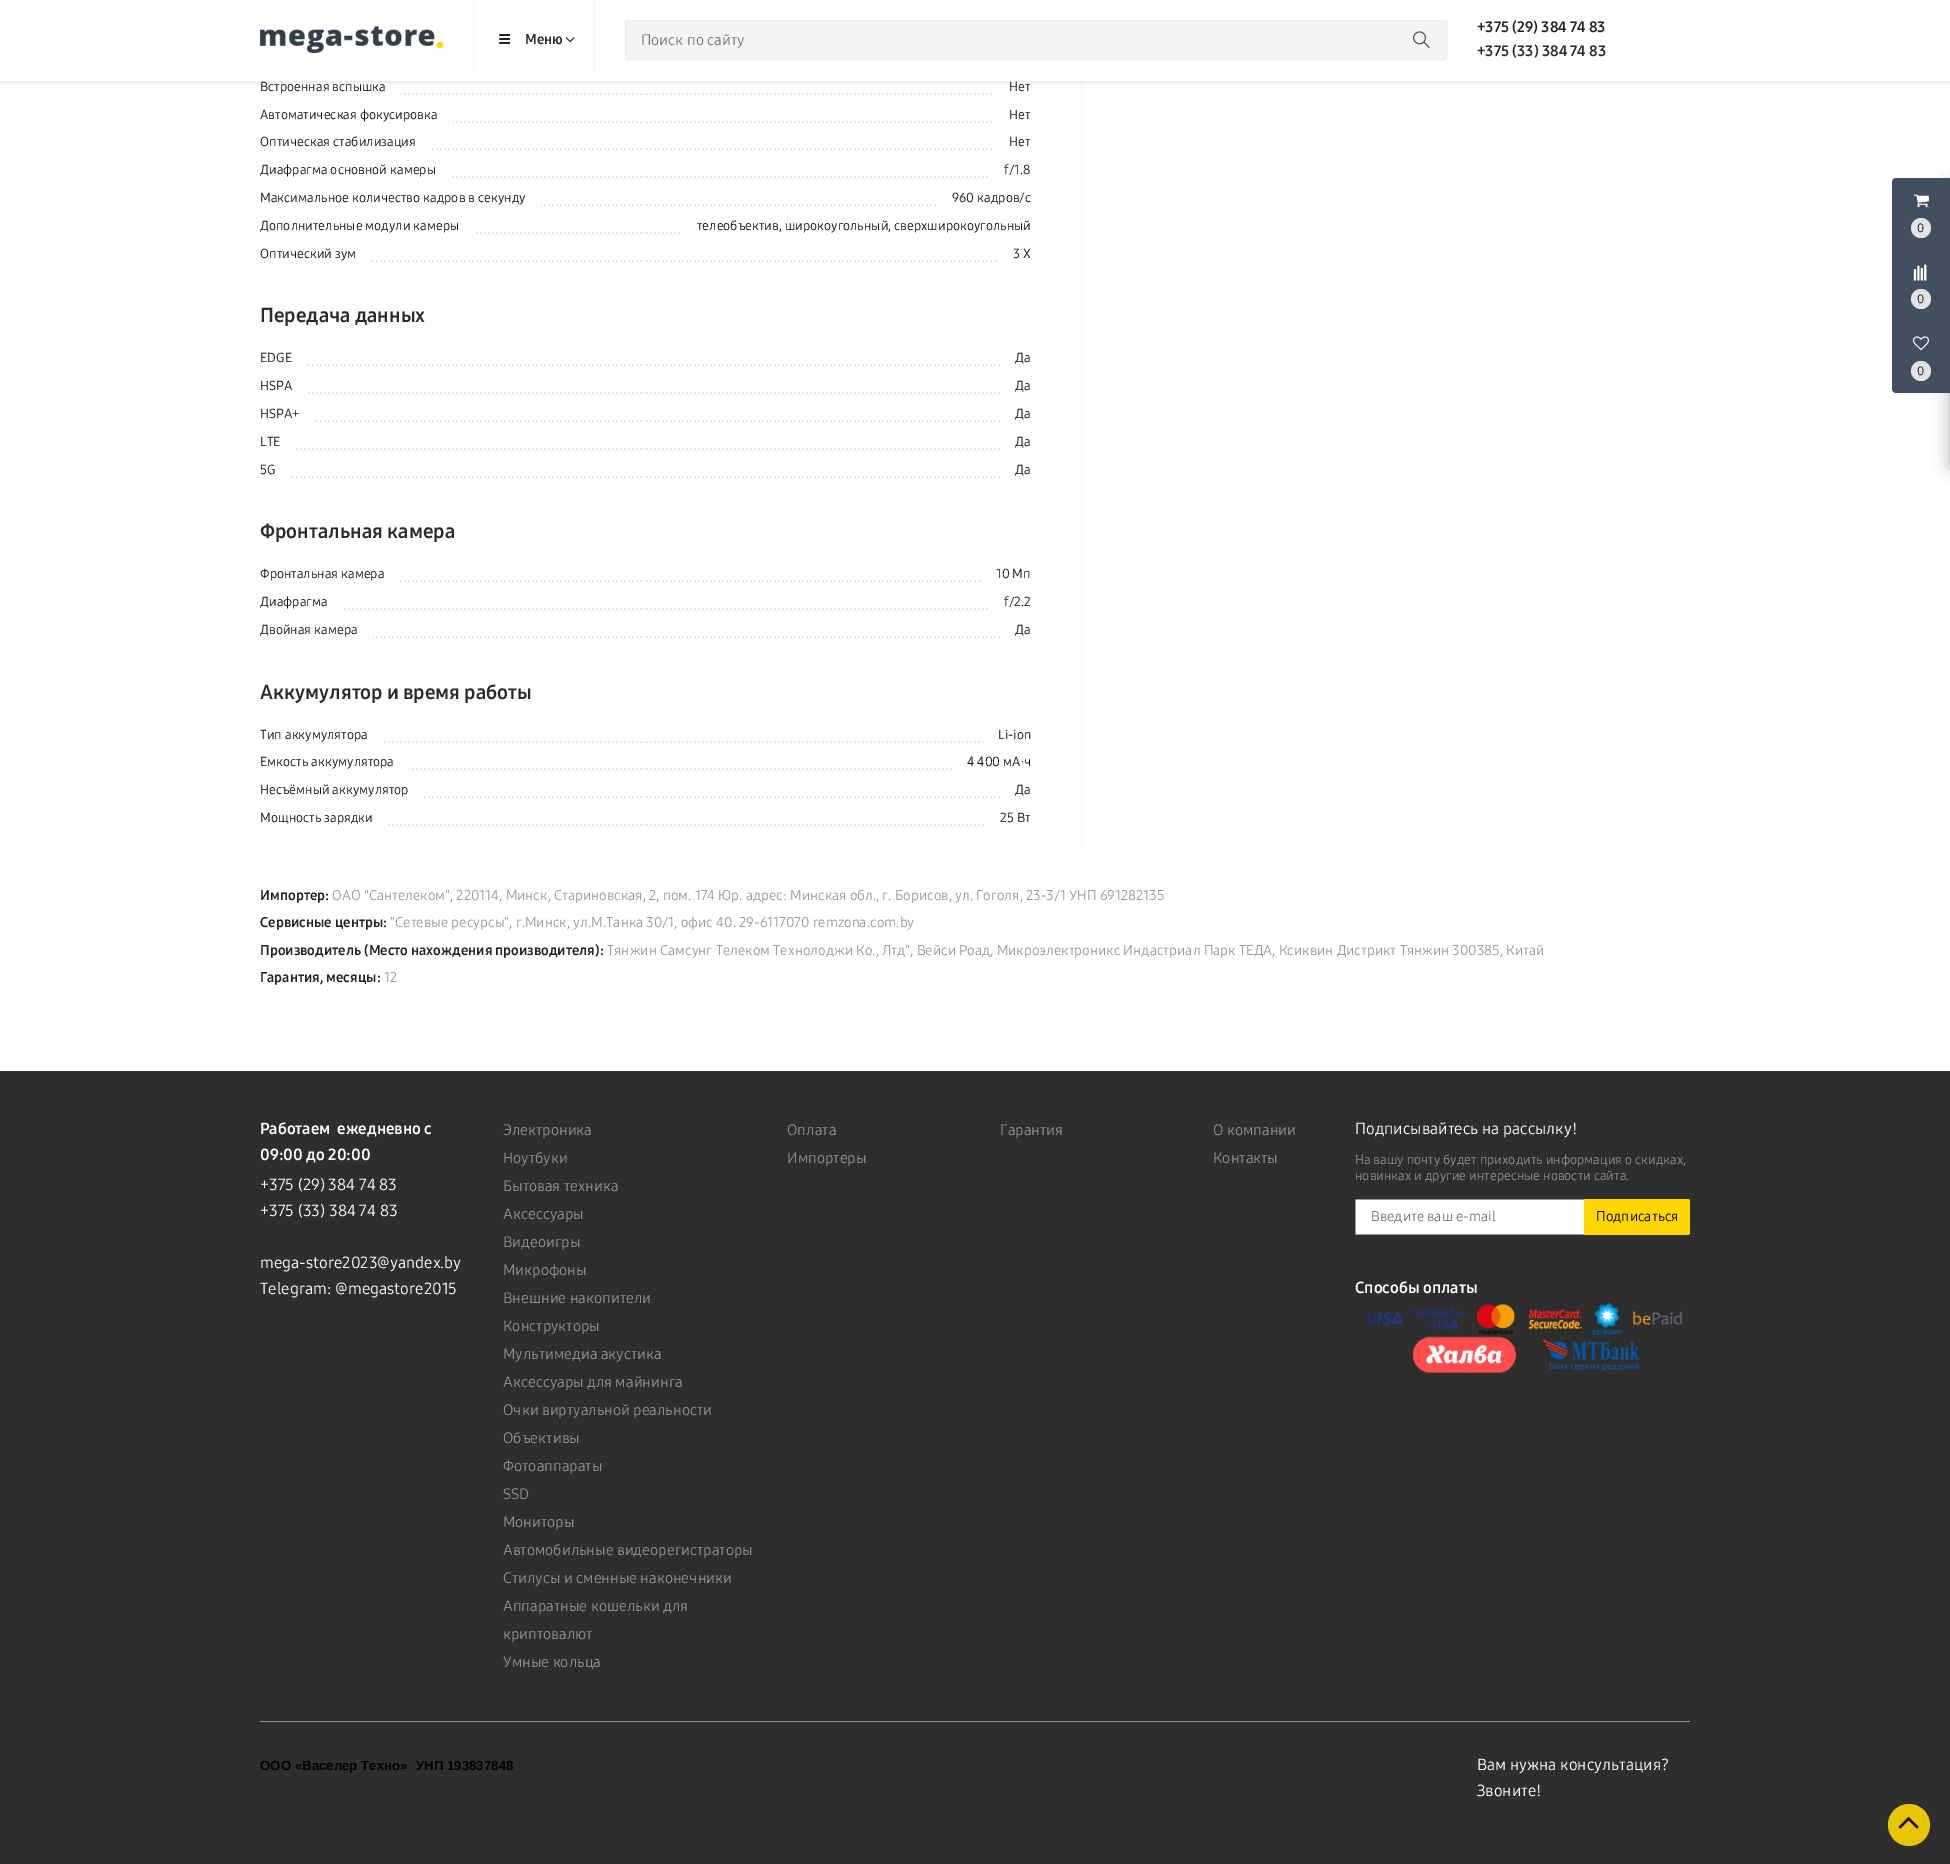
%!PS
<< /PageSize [1950 1864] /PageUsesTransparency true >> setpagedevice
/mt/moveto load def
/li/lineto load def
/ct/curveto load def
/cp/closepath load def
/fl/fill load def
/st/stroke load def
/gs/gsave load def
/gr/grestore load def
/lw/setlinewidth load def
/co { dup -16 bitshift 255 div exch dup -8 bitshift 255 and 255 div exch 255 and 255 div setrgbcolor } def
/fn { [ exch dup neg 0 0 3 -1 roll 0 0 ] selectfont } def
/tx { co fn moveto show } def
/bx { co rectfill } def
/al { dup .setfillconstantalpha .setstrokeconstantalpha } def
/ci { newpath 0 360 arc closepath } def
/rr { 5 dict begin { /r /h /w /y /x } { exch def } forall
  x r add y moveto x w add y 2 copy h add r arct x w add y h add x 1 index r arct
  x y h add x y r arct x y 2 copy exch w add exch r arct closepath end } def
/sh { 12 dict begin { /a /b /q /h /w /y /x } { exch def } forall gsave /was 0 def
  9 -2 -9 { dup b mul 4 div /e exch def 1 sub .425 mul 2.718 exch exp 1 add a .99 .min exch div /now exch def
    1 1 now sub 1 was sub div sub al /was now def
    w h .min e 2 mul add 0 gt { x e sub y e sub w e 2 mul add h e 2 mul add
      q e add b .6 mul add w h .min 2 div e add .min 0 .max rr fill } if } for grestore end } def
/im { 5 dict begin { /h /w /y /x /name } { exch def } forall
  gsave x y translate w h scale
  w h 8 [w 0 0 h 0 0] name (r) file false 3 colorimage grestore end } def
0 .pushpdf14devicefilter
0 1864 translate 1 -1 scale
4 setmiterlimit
0 0 1950 1864 16#FFFFFF bx
1081 81 1 764 16#F6F6F6 bx
16#000000 co
0 1 1950 81 0 2.5 .14 sh
0 0 1950 81 16#FFFFFF bx
(media/1.raw) 260 25 183 28 im
594 0 1 72 16#F6F6F6 bx
473 0 1 72 16#F6F6F6 bx
(media/2.raw) 499 34 11 10 im
(media/3.raw) 565 37 10 6 im
16#F5F5F5 co
625.5 20.5 821 39 1.5 rr gs fl gr
16#EEEEEE co
st
(media/4.raw) 1413 31 17 17 im
16#E5E5E5 co
2 lw
[2 2] 0 setdash
260 94 mt 645 94 li st
260 93 141 2 16#FFFFFF bx
16#E5E5E5 co
646 94 mt 1024 94 li st
994 93 30 2 16#FFFFFF bx
16#E5E5E5 co
260 122 mt 645 122 li st
260 121 193 2 16#FFFFFF bx
16#E5E5E5 co
646 122 mt 1024 122 li st
994 121 30 2 16#FFFFFF bx
16#E5E5E5 co
260 149 mt 645 149 li st
260 148 170 2 16#FFFFFF bx
16#E5E5E5 co
646 149 mt 1024 149 li st
994 148 30 2 16#FFFFFF bx
16#E5E5E5 co
260 177 mt 645 177 li st
260 176 190 2 16#FFFFFF bx
16#E5E5E5 co
646 177 mt 1024 177 li st
990 176 34 2 16#FFFFFF bx
16#E5E5E5 co
260 205 mt 645 205 li st
260 204 281 2 16#FFFFFF bx
16#E5E5E5 co
646 205 mt 1024 205 li st
938 204 86 2 16#FFFFFF bx
16#E5E5E5 co
260 233 mt 645 233 li st
260 232 214 2 16#FFFFFF bx
16#E5E5E5 co
646 233 mt 1024 233 li st
682 232 342 2 16#FFFFFF bx
16#E5E5E5 co
260 261 mt 645 261 li st
260 260 110 2 16#FFFFFF bx
16#E5E5E5 co
646 261 mt 1024 261 li st
998 260 26 2 16#FFFFFF bx
16#E5E5E5 co
260 365 mt 645 365 li st
260 364 46 2 16#FFFFFF bx
16#E5E5E5 co
646 365 mt 1024 365 li st
1002 364 22 2 16#FFFFFF bx
16#E5E5E5 co
260 393 mt 645 393 li st
260 392 46 2 16#FFFFFF bx
16#E5E5E5 co
646 393 mt 1024 393 li st
1002 392 22 2 16#FFFFFF bx
16#E5E5E5 co
260 421 mt 645 421 li st
260 420 54 2 16#FFFFFF bx
16#E5E5E5 co
646 421 mt 1024 421 li st
1002 420 22 2 16#FFFFFF bx
16#E5E5E5 co
260 449 mt 645 449 li st
260 448 34 2 16#FFFFFF bx
16#E5E5E5 co
646 449 mt 1024 449 li st
1002 448 22 2 16#FFFFFF bx
16#E5E5E5 co
260 477 mt 645 477 li st
260 476 30 2 16#FFFFFF bx
16#E5E5E5 co
646 477 mt 1024 477 li st
1002 476 22 2 16#FFFFFF bx
16#E5E5E5 co
260 581 mt 645 581 li st
260 580 138 2 16#FFFFFF bx
16#E5E5E5 co
646 581 mt 1024 581 li st
982 580 42 2 16#FFFFFF bx
16#E5E5E5 co
260 609 mt 645 609 li st
260 608 82 2 16#FFFFFF bx
16#E5E5E5 co
646 609 mt 1024 609 li st
990 608 34 2 16#FFFFFF bx
16#E5E5E5 co
260 637 mt 645 637 li st
260 636 113 2 16#FFFFFF bx
16#E5E5E5 co
646 637 mt 1024 637 li st
1002 636 22 2 16#FFFFFF bx
16#E5E5E5 co
260 742 mt 645 742 li st
260 741 122 2 16#FFFFFF bx
16#E5E5E5 co
646 742 mt 1024 742 li st
983 741 41 2 16#FFFFFF bx
16#E5E5E5 co
260 769 mt 645 769 li st
260 768 149 2 16#FFFFFF bx
16#E5E5E5 co
646 769 mt 1024 769 li st
954 768 70 2 16#FFFFFF bx
16#E5E5E5 co
260 797 mt 645 797 li st
260 796 162 2 16#FFFFFF bx
16#E5E5E5 co
646 797 mt 1024 797 li st
1002 796 22 2 16#FFFFFF bx
16#E5E5E5 co
260 825 mt 645 825 li st
260 824 126 2 16#FFFFFF bx
16#E5E5E5 co
646 825 mt 1024 825 li st
986 824 38 2 16#FFFFFF bx
16#2C2C2C co
1950 184 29 283 2 9 .4 sh
16#424F60 co
1896 178 mt 1950 178 li 1950 393 li 1896 393 li 1894 393 1892 391 1892 389 ct 1892 182 li 1892 180 1894 178 1896 178 ct cp fl
(media/5.raw) 1914 194 15 14 im
16#E3E3E3 co
1921 228 10 ci fl
(media/6.raw) 1913 264 14 17 im
1921 299 10 ci fl
(media/7.raw) 1913 336 16 15 im
1921 371 10 ci fl
0 1071 1950 793 16#2E2E2F bx
260 1721 1430 1 16#8F8F8F bx
16#FFFFFF co
1357 1199 mt 1585 1199 li 1585 1235 li 1357 1235 li 1356 1235 1355 1234 1355 1233 ct 1355 1201 li 1355 1200 1356 1199 1357 1199 ct cp fl
1356 1199 229 1 16#999999 bx
1356 1234 229 1 16#999999 bx
1355 1200 1 34 16#999999 bx
16#FED700 co
1584 1199 mt 1688 1199 li 1689 1199 1690 1200 1690 1201 ct 1690 1233 li 1690 1234 1689 1235 1688 1235 ct 1584 1235 li cp fl
(media/8.raw) 1363 1302 319 72 im
16#E9C605 co
1909 1825 21 ci fl
(media/9.raw) 1898 1817 21 12 im
(Меню) 525 44 /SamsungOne-Bold 14 16#2B2A29 tx
(Поиск по сайту) 641 45 /SamsungOne-Regular 15 16#757575 tx
(+375 \(29\) 384 74 83) 1477 32 /SamsungOne-Bold 15 16#222222 tx
(+375 \(33\) 384 74 83) 1477 56 /SamsungOne-Bold 15 16#2B2A29 tx
(Встроенная вспышка) 260 91 /SamsungOne-Regular 13 16#111111 tx
(Нет) 1009 91 /SamsungOne-Regular 13 16#111111 tx
(Автоматическая фокусировка) 260 119 /SamsungOne-Regular 13 16#111111 tx
(Нет) 1009 119 /SamsungOne-Regular 13 16#111111 tx
(Оптическая стабилизация) 260 146 /SamsungOne-Regular 13 16#111111 tx
(Нет) 1009 146 /SamsungOne-Regular 13 16#111111 tx
(Диафрагма основной камеры) 260 174 /SamsungOne-Regular 13 16#111111 tx
(f/1.8) 1004 174 /SamsungOne-Regular 13 16#111111 tx
(Максимальное количество кадров в секунду) 260 202 /SamsungOne-Regular 13 16#111111 tx
(960 кадров/с) 952 202 /SamsungOne-Regular 13 16#111111 tx
(Дополнительные модули камеры) 260 230 /SamsungOne-Regular 13 16#111111 tx
(телеобъектив, широкоугольный, сверхширокоугольный) 697 230 /SamsungOne-Regular 13 16#111111 tx
(Оптический зум) 260 258 /SamsungOne-Regular 13 16#111111 tx
(3 Х) 1013 258 /SamsungOne-Regular 13 16#111111 tx
(Передача данных) 260 322 /SamsungOne-Bold 20 16#2B2A29 tx
(EDGE) 260 362 /SamsungOne-Regular 13 16#111111 tx
(Да) 1015 362 /SamsungOne-Regular 13 16#111111 tx
(HSPA) 260 390 /SamsungOne-Regular 13 16#111111 tx
(Да) 1015 390 /SamsungOne-Regular 13 16#111111 tx
(HSPA+) 260 418 /SamsungOne-Regular 13 16#111111 tx
(Да) 1015 418 /SamsungOne-Regular 13 16#111111 tx
(LTE) 260 446 /SamsungOne-Regular 13 16#111111 tx
(Да) 1015 446 /SamsungOne-Regular 13 16#111111 tx
(5G) 260 474 /SamsungOne-Regular 13 16#111111 tx
(Да) 1015 474 /SamsungOne-Regular 13 16#111111 tx
(Фронтальная камера) 260 538 /SamsungOne-Bold 20 16#2B2A29 tx
(Фронтальная камера) 260 578 /SamsungOne-Regular 13 16#111111 tx
(10 Мп) 996 578 /SamsungOne-Regular 13 16#111111 tx
(Диафрагма) 260 606 /SamsungOne-Regular 13 16#111111 tx
(f/2.2) 1004 606 /SamsungOne-Regular 13 16#111111 tx
(Двойная камера) 260 634 /SamsungOne-Regular 13 16#111111 tx
(Да) 1015 634 /SamsungOne-Regular 13 16#111111 tx
(Аккумулятор и время работы) 260 699 /SamsungOne-Bold 20 16#2B2A29 tx
(Тип аккумулятора) 260 739 /SamsungOne-Regular 13 16#111111 tx
(Li-ion) 998 739 /SamsungOne-Regular 13 16#111111 tx
(Емкость аккумулятора) 260 766 /SamsungOne-Regular 13 16#111111 tx
(4 400 мА·ч) 967 766 /SamsungOne-Regular 13 16#111111 tx
(Несъёмный аккумулятор) 260 794 /SamsungOne-Regular 13 16#111111 tx
(Да) 1015 794 /SamsungOne-Regular 13 16#111111 tx
(Мощность зарядки) 260 822 /SamsungOne-Regular 13 16#111111 tx
(25 Вт) 1000 822 /SamsungOne-Regular 13 16#111111 tx
(Импортер:) 260 900 /SamsungOne-Bold 14 16#222222 tx
(ОАО "Сантелеком", 220114, Минск, Стариновская, 2, пом. 174 Юр. адрес: Минская обл., г. Борисов, ул. Гоголя, 23-3/1 УНП 691282135) 332 900 /SamsungOne-Regular 14 16#999999 tx
(Сервисные центры:) 260 927 /SamsungOne-Bold 14 16#222222 tx
("Сетевые ресурсы", г.Минск, ул.М.Танка 30/1, офис 40. 29-6117070 remzona.com.by) 390 927 /SamsungOne-Regular 14 16#999999 tx
(Производитель \(Место нахождения производителя\):) 260 955 /SamsungOne-Bold 14 16#222222 tx
(Тянжин Самсунг Телеком Технолоджи Ко., Лтд", Вейси Роад, Микроэлектроникс Индастриал Парк ТЕДА, Ксиквин Дистрикт Тянжин 300385, Китай) 607 955 /SamsungOne-Regular 14 16#999999 tx
(Гарантия, месяцы:) 260 982 /SamsungOne-Bold 14 16#222222 tx
(12) 384 982 /SamsungOne-Regular 14 16#999999 tx
(0) 1917 232 /SamsungOne-Regular 12 16#111111 tx
(0) 1917 303 /SamsungOne-Regular 12 16#111111 tx
(0) 1917 375 /SamsungOne-Regular 12 16#111111 tx
(Работаем  ежедневно с) 260 1134 /SamsungOne-Bold 16 16#FFFFFF tx
(09:00 до 20:00) 260 1160 /SamsungOne-Bold 16 16#FFFFFF tx
(+375 \(29\) 384 74 83) 260 1190 /SamsungOne-Regular 16 16#FFFFFF tx
(+375 \(33\) 384 74 83) 260 1216 /SamsungOne-Regular 16 16#FFFFFF tx
(mega-store2023@yandex.by) 260 1268 /SamsungOne-Regular 16 16#FFFFFF tx
(Telegram: @megastore2015) 260 1294 /SamsungOne-Regular 16 16#FFFFFF tx
(Электроника) 503 1135 /SamsungOne-Regular 15 16#8F8F8F tx
(Ноутбуки) 503 1163 /SamsungOne-Regular 15 16#8F8F8F tx
(Бытовая техника) 503 1191 /SamsungOne-Regular 15 16#8F8F8F tx
(Аксессуары) 503 1219 /SamsungOne-Regular 15 16#8F8F8F tx
(Видеоигры) 503 1247 /SamsungOne-Regular 15 16#8F8F8F tx
(Микрофоны) 503 1275 /SamsungOne-Regular 15 16#8F8F8F tx
(Внешние накопители) 503 1303 /SamsungOne-Regular 15 16#8F8F8F tx
(Конструкторы) 503 1331 /SamsungOne-Regular 15 16#8F8F8F tx
(Мультимедиа акустика) 503 1359 /SamsungOne-Regular 15 16#8F8F8F tx
(Аксессуары для майнинга) 503 1387 /SamsungOne-Regular 15 16#8F8F8F tx
(Очки виртуальной реальности) 503 1415 /SamsungOne-Regular 15 16#8F8F8F tx
(Объективы) 503 1443 /SamsungOne-Regular 15 16#8F8F8F tx
(Фотоаппараты) 503 1471 /SamsungOne-Regular 15 16#8F8F8F tx
(SSD) 503 1499 /SamsungOne-Regular 15 16#8F8F8F tx
(Мониторы) 503 1527 /SamsungOne-Regular 15 16#8F8F8F tx
(Автомобильные видеорегистраторы) 503 1555 /SamsungOne-Regular 15 16#8F8F8F tx
(Стилусы и сменные наконечники) 503 1583 /SamsungOne-Regular 15 16#8F8F8F tx
(Аппаратные кошельки для) 503 1611 /SamsungOne-Regular 15 16#8F8F8F tx
(криптовалют) 503 1639 /SamsungOne-Regular 15 16#8F8F8F tx
(Умные кольца) 503 1667 /SamsungOne-Regular 15 16#8F8F8F tx
(Оплата) 787 1135 /SamsungOne-Regular 15 16#8F8F8F tx
(Импортеры) 787 1163 /SamsungOne-Regular 15 16#8F8F8F tx
(Гарантия) 1000 1135 /SamsungOne-Regular 15 16#8F8F8F tx
(О компании) 1213 1135 /SamsungOne-Regular 15 16#8F8F8F tx
(Контакты) 1213 1163 /SamsungOne-Regular 15 16#8F8F8F tx
(Подписывайтесь на рассылку!) 1355 1134 /SamsungOne-Regular 16 16#FFFFFF tx
(На вашу почту будет приходить информация о скидках,) 1355 1164 /SamsungOne-Regular 13 16#8F8F8F tx
(новинках и другие интересные новости сайта.) 1355 1180 /SamsungOne-Regular 13 16#8F8F8F tx
(Введите ваш e-mail) 1371 1221 /SamsungOne-Regular 14 16#757575 tx
(Подписаться) 1596 1221 /SamsungOne-Regular 14 16#000000 tx
(Способы оплаты) 1355 1293 /SamsungOne-Bold 16 16#FFFFFF tx
(ООО «Васелер Техно») 260 1770 /LiberationSans-Bold 13.25 16#000000 tx
(УНП 193837848) 416 1770 /LiberationSans-Bold 13.25 16#000000 tx
(Вам нужна консультация?) 1477 1770 /SamsungOne-Regular 16 16#FFFFFF tx
(Звоните!) 1477 1796 /SamsungOne-Regular 16 16#FFFFFF tx
.poppdf14devicefilter showpage
